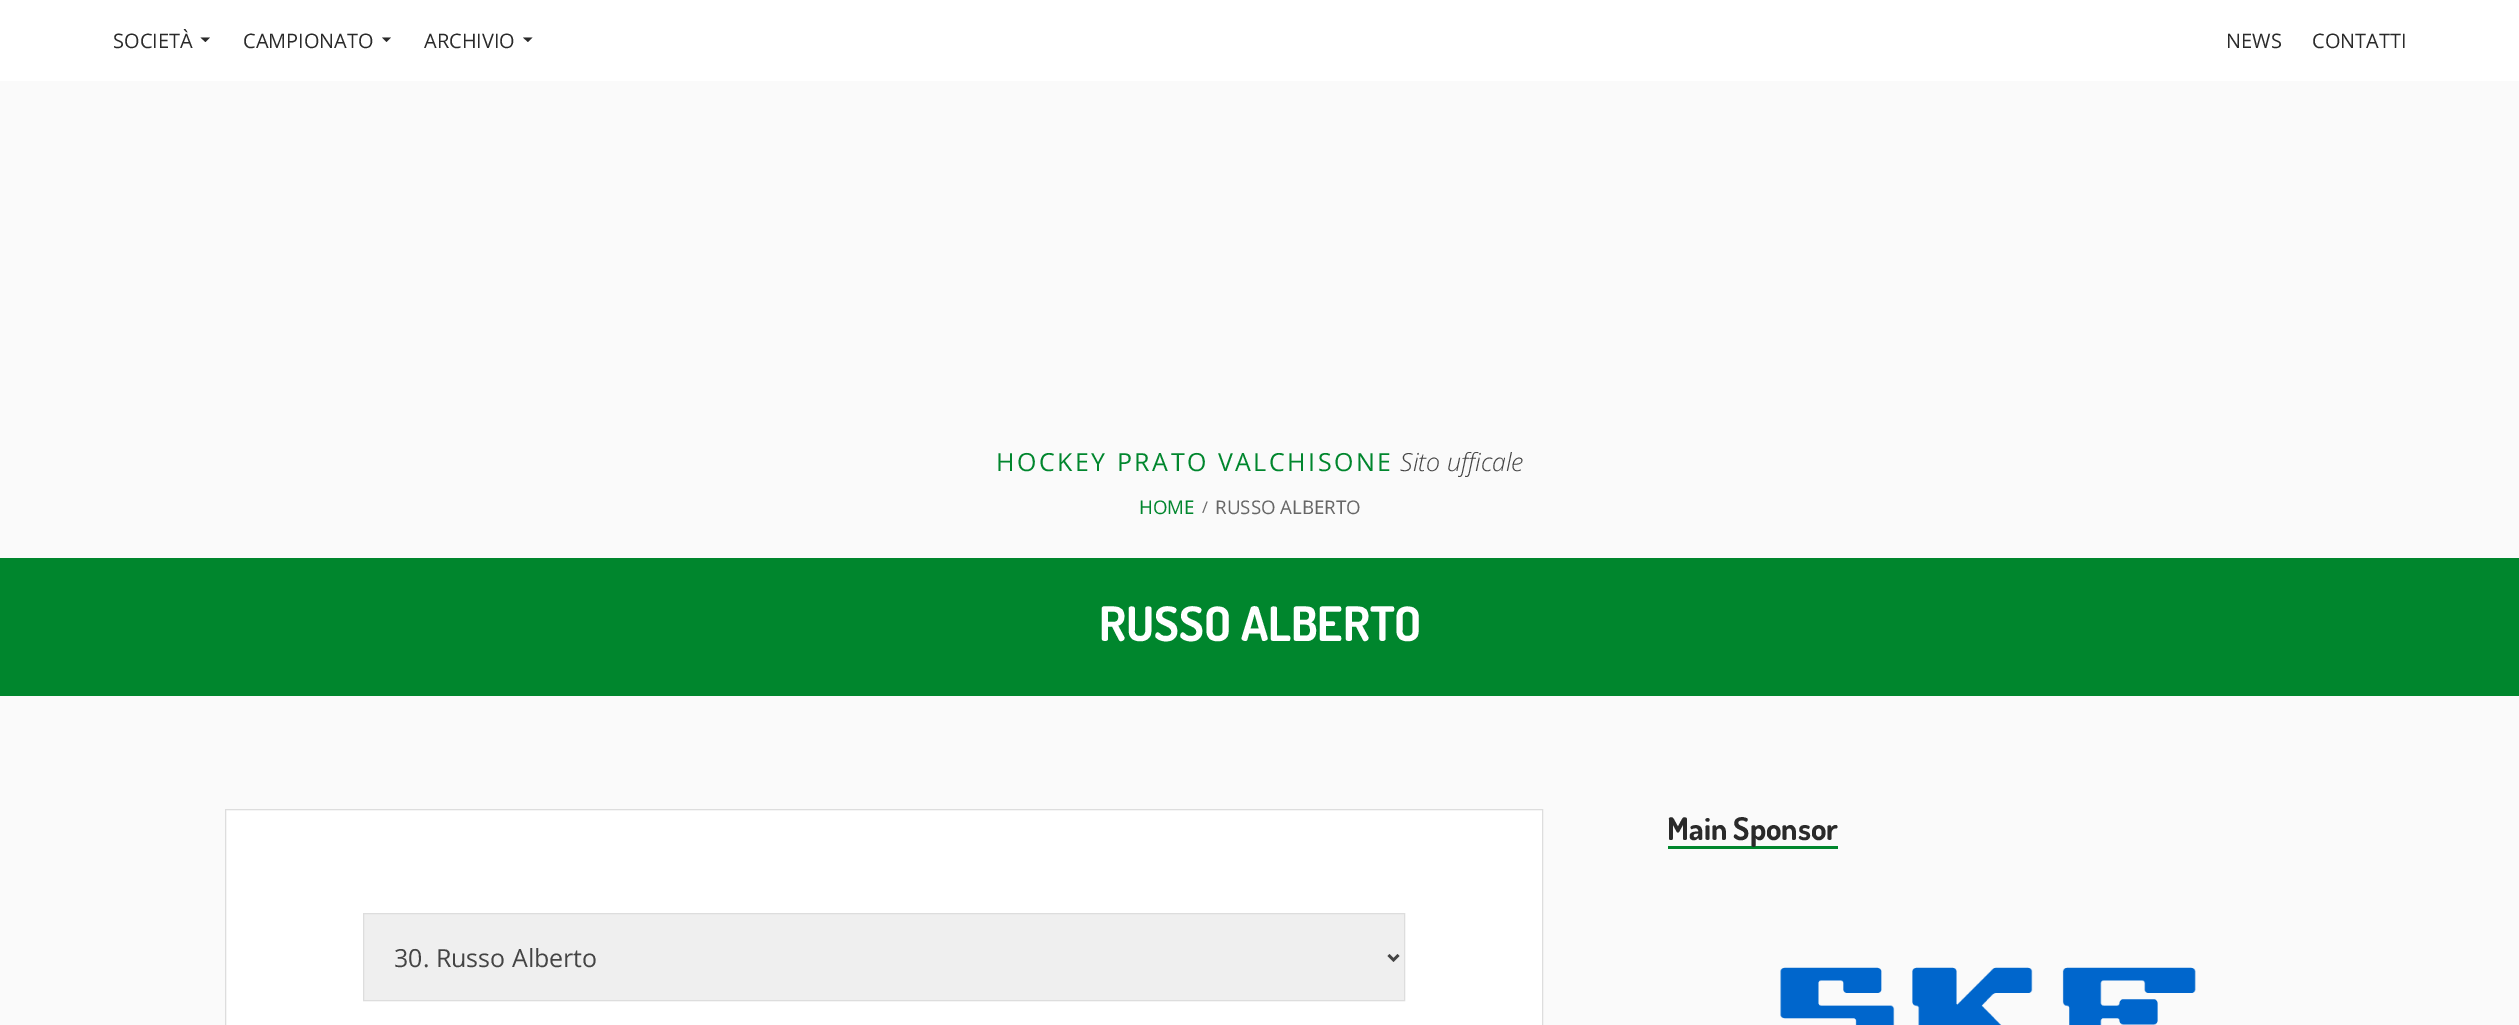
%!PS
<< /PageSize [2519 1025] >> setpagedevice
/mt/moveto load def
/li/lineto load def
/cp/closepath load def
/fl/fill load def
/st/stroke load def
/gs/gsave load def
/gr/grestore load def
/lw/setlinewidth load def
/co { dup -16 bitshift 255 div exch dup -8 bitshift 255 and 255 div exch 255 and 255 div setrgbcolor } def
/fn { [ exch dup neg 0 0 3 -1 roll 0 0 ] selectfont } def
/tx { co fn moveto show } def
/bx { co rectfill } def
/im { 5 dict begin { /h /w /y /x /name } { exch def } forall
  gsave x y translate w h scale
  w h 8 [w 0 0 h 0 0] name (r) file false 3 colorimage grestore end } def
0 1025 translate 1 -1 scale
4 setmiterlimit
0 0 2519 1025 16#FAFAFA bx
0 0 2519 81 16#FFFFFF bx
16#2A2A2A co
200.5 37.5 mt 210 37.5 li 205.5 42 li cp fl
382 37.5 mt 391 37.5 li 386.5 42 li cp fl
523 37.5 mt 532.5 37.5 li 528 42 li cp fl
0 558 2519 138 16#00862D bx
1668 846 170 3 16#00862D bx
(media/1.raw) 1780 967 416 58 im
16#FFFFFF co
225.5 809.5 mt 1542.5 809.5 li 1542.5 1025.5 li 225.5 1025.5 li cp gs fl gr
16#DDDDDD co
st
16#EFEFEF co
363.5 913.5 mt 1404.5 913.5 li 1404.5 1000.5 li 363.5 1000.5 li cp gs fl gr
16#DDDDDD co
st
16#444444 co
2.5 lw
1388.5 955 mt 1393.5 960 li 1398.5 955 li st
(SOCIETÀ) 113 48 /OpenSans-Regular 20 16#2A2A2A tx
(CAMPIONATO) 243 48 /OpenSans-Regular 20 16#2A2A2A tx
(ARCHIVIO) 424 48 /OpenSans-Regular 20 16#2A2A2A tx
(NEWS) 2226 48 /OpenSans-Regular 20 16#2A2A2A tx
(CONTATTI) 2312 48 /OpenSans-Regular 20 16#2A2A2A tx
/OpenSans-Regular 25 fn
16#00862D co
996 471 mt 2.5 0 (HOCKEY PRATO VALCHISONE) ashow
(Sito ufficale) 1400 471 /OpenSans-LightItalic 25 16#444444 tx
(HOME) 1139 514 /OpenSans-Regular 18.75 16#00862D tx
(/) 1202 513 /OpenSans-Regular 16 16#666666 tx
(RUSSO ALBERTO) 1215 514 /OpenSans-Regular 18.75 16#666666 tx
(RUSSO ALBERTO) 1099 641 /Dosis-Bold 47.5 16#FFFFFF tx
(Main Sponsor) 1667 840 /Dosis-Bold 31.25 16#2A2A2A tx
(30. Russo Alberto) 394 967 /OpenSans-Regular 25 16#444444 tx
showpage
